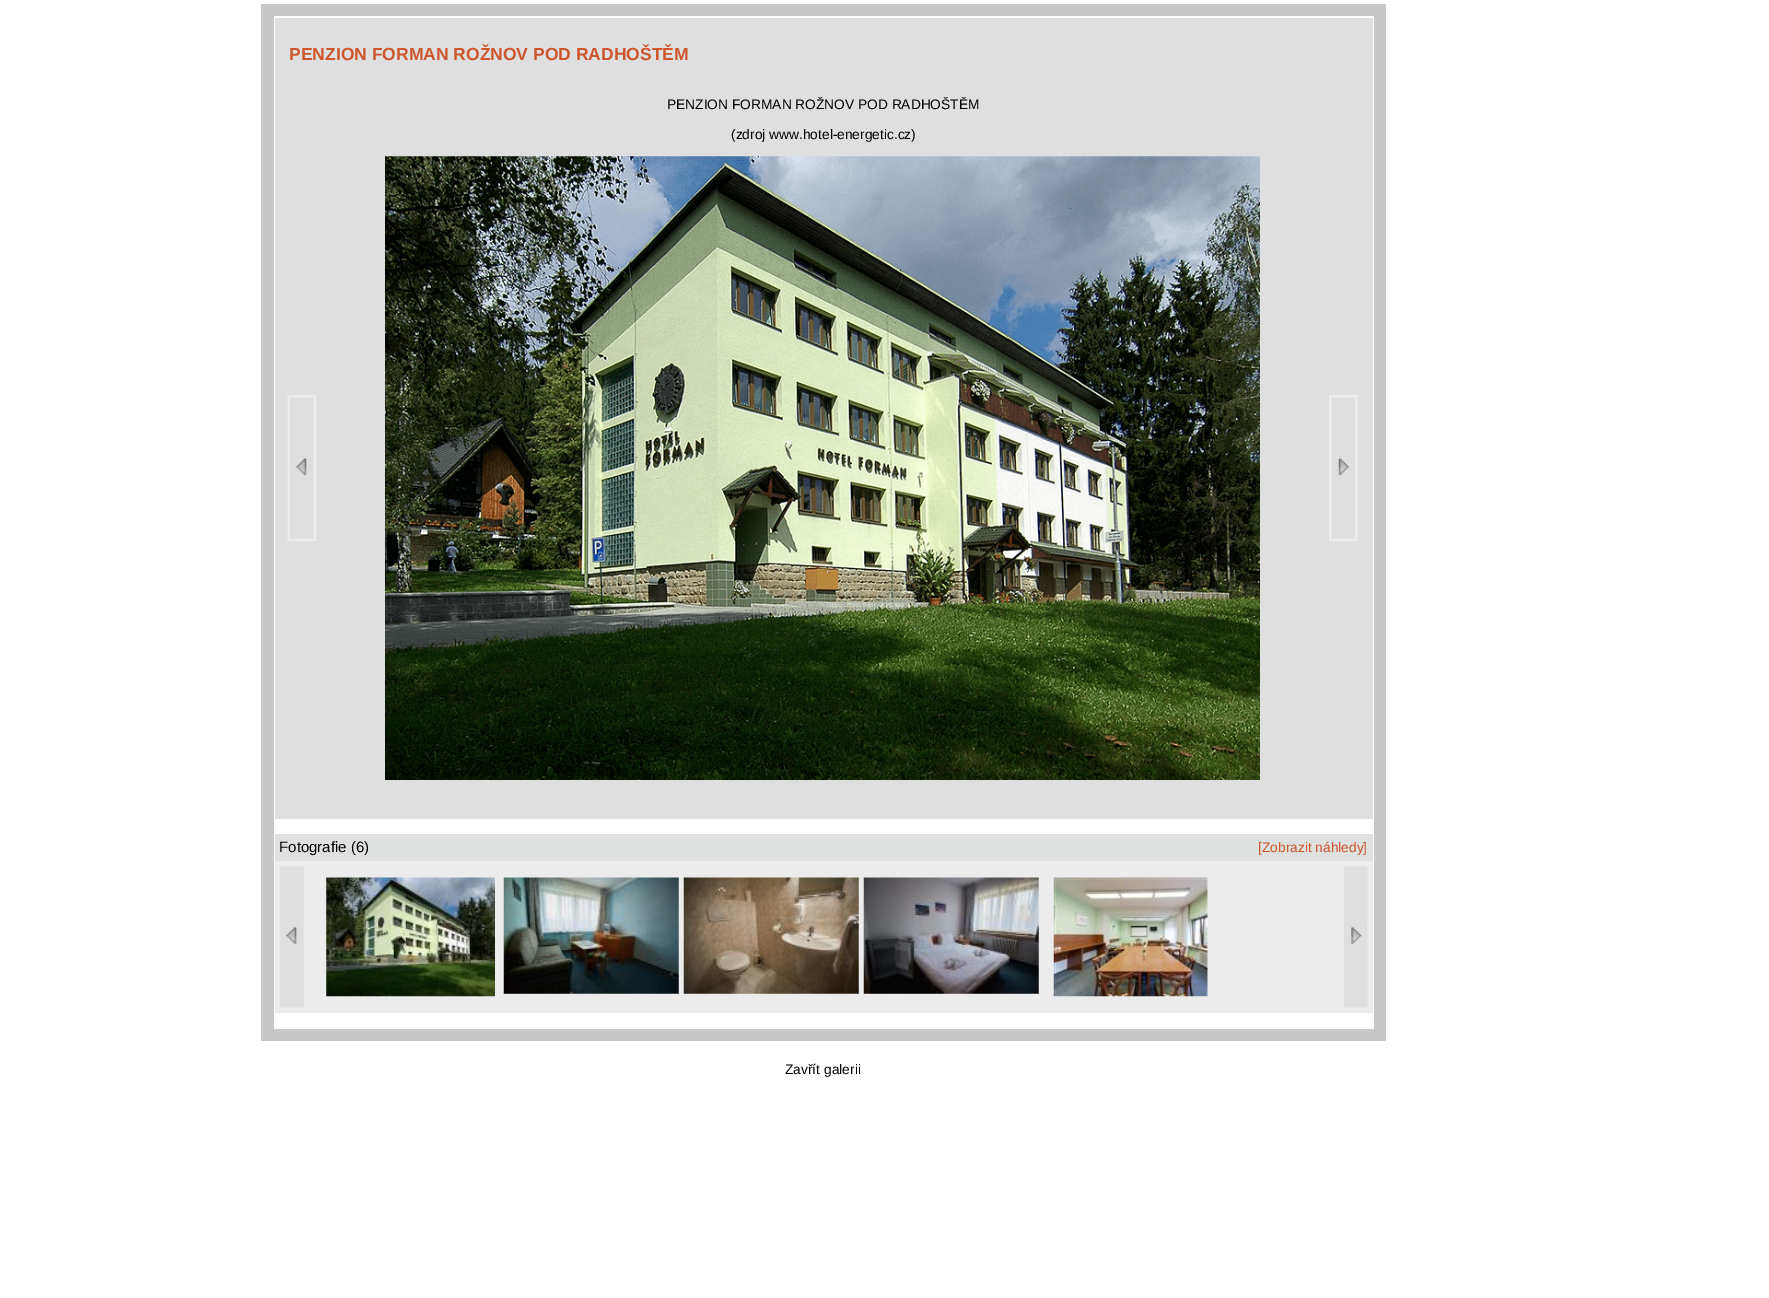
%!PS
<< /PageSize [1769 1298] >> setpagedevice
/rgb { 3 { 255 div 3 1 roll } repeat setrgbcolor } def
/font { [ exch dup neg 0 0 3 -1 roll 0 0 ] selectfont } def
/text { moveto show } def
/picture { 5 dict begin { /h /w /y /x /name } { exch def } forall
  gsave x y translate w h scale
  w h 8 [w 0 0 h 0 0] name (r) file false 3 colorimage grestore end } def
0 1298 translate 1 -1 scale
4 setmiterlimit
255 255 255 rgb
0 0 1769 1298 rectfill
200 200 200 rgb
274 4 1100 12 rectfill
1374 4 12 1025 rectfill
274 1029 1112 12 rectfill
261 4 13 1037 rectfill
223 223 223 rgb
275 18 1098 801 rectfill
(img_01.rgb) 287 395 29 146 picture
(img_02.rgb) 385 156 875 624 picture
(img_03.rgb) 1329 395 29 146 picture
223 224 224 rgb
275 834 1098 27 rectfill
236 236 236 rgb
275 861 1098 152 rectfill
(img_04.rgb) 280 866 24 142 picture
(img_05.rgb) 326 877 169 120 picture
(img_06.rgb) 503 877 176 117 picture
(img_07.rgb) 683 877 176 117 picture
(img_08.rgb) 863 877 176 117 picture
(img_09.rgb) 1053 877 155 120 picture
(img_10.rgb) 1344 866 24 142 picture
/LiberationSans-Bold 17.5 font
206 85 45 rgb
(PENZION FORMAN ROŽNOV POD RADHOŠTĚM) 289 60 text
/LiberationSans-Regular 13.75 font
0 0 0 rgb
(PENZION FORMAN ROŽNOV POD RADHOŠTĚM) 667 109 text
(\(zdroj www.hotel-energetic.cz\)) 731 139 text
/LiberationSans-Regular 15 font
(Fotografie \(6\)) 279 852 text
/LiberationSans-Regular 13.75 font
206 85 45 rgb
([Zobrazit náhledy]) 1258 852 text
0 0 0 rgb
(Zavřít galerii) 785 1074 text
showpage
